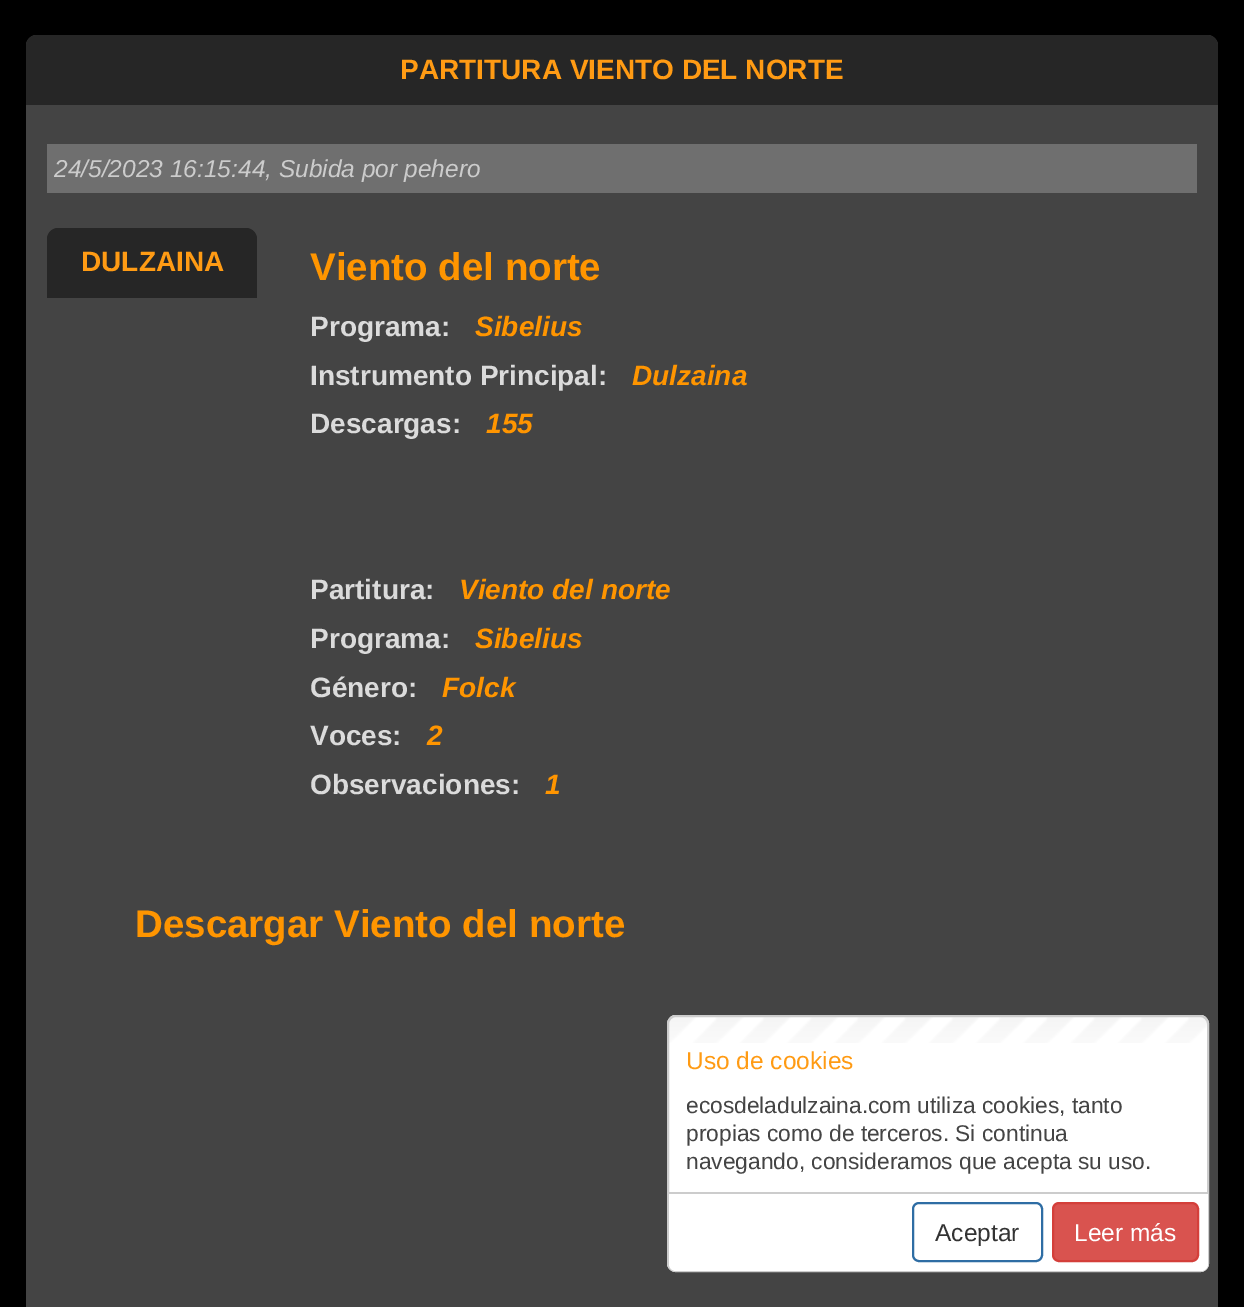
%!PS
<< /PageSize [1244 1307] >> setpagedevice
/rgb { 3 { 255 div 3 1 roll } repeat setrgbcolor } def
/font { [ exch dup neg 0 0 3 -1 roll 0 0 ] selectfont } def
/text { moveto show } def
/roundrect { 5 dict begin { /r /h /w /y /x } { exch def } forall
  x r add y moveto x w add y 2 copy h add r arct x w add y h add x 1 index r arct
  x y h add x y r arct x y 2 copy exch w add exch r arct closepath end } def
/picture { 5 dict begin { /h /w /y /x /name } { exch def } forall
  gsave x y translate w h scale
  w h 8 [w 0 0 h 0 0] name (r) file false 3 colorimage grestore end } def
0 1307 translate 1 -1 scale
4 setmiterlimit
0 0 0 rgb
0 0 1244 1307 rectfill
68 68 68 rgb
26 35 1192 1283 11 roundrect fill
38 38 38 rgb
37 35 moveto 1170 0 rlineto 6 0 11 5 11 11 rcurveto 0 59 rlineto -1192 0 rlineto 0 -59 rlineto 0 -6 5 -11 11 -11 rcurveto closepath fill
111 111 111 rgb
47 144 1150 49 rectfill
38 38 38 rgb
58 228 moveto 188 0 rlineto 6 0 11 5 11 11 rcurveto 0 59 rlineto -210 0 rlineto 0 -59 rlineto 0 -6 5 -11 11 -11 rcurveto closepath fill
255 255 255 rgb
667 1015 542 257 9 roundrect fill
(img_01.rgb) 667 1017 542 26 picture
204 204 204 rgb
2 setlinewidth
668 1016 540 255 8 roundrect stroke
255 255 255 rgb
669 1192 moveto 539 0 rlineto 0 72 rlineto 0 4 -3 7 -7 7 rcurveto -525 0 rlineto -4 0 -7 -3 -7 -7 rcurveto closepath fill
204 204 204 rgb
669 1192 539 2 rectfill
46 109 164 rgb
913 1203 129 58 6 roundrect stroke
217 83 79 rgb
1053 1203 145 58 6 roundrect gsave fill grestore
212 63 58 rgb
stroke
/LiberationSans-Bold 28 font
255 155 20 rgb
(PARTITURA VIENTO DEL NORTE) 400 79 text
/LiberationSans-Italic 24.5 font
204 204 204 rgb
(24/5/2023 16:15:44, Subida por pehero) 54 177 text
/LiberationSans-Bold 28 font
255 155 20 rgb
(DULZAINA) 81 271 text
/LiberationSans-Bold 38.5 font
255 149 0 rgb
(Viento del norte) 310 280 text
/LiberationSans-Bold 28 font
219 219 219 rgb
(Programa:) 310 336 text
/LiberationSans-BoldItalic 28 font
255 149 0 rgb
(Sibelius) 475 336 text
/LiberationSans-Bold 28 font
219 219 219 rgb
(Instrumento Principal:) 310 385 text
/LiberationSans-BoldItalic 28 font
255 149 0 rgb
(Dulzaina) 632 385 text
/LiberationSans-Bold 28 font
219 219 219 rgb
(Descargas:) 310 433 text
/LiberationSans-BoldItalic 28 font
255 149 0 rgb
(155) 486 433 text
/LiberationSans-Bold 28 font
219 219 219 rgb
(Partitura:) 310 599 text
/LiberationSans-BoldItalic 28 font
255 149 0 rgb
(Viento del norte) 459 599 text
/LiberationSans-Bold 28 font
219 219 219 rgb
(Programa:) 310 648 text
/LiberationSans-BoldItalic 28 font
255 149 0 rgb
(Sibelius) 475 648 text
/LiberationSans-Bold 28 font
219 219 219 rgb
(Género:) 310 697 text
/LiberationSans-BoldItalic 28 font
255 149 0 rgb
(Folck) 442 697 text
/LiberationSans-Bold 28 font
219 219 219 rgb
(Voces:) 310 745 text
/LiberationSans-BoldItalic 28 font
255 149 0 rgb
(2) 427 745 text
/LiberationSans-Bold 28 font
219 219 219 rgb
(Observaciones:) 310 794 text
/LiberationSans-BoldItalic 28 font
255 149 0 rgb
(1) 545 794 text
/LiberationSans-Bold 38.5 font
(Descargar Viento del norte) 135 937 text
/LiberationSans-Regular 24.5 font
255 155 20 rgb
(Uso de cookies) 686 1069 text
/LiberationSans-Regular 22.75 font
68 68 68 rgb
(ecosdeladulzaina.com utiliza cookies, tanto) 686 1113 text
(propias como de terceros. Si continua) 686 1141 text
(navegando, consideramos que acepta su uso.) 686 1169 text
/LiberationSans-Regular 24.5 font
51 51 51 rgb
(Aceptar) 935 1241 text
255 255 255 rgb
(Leer más) 1074 1241 text
showpage
